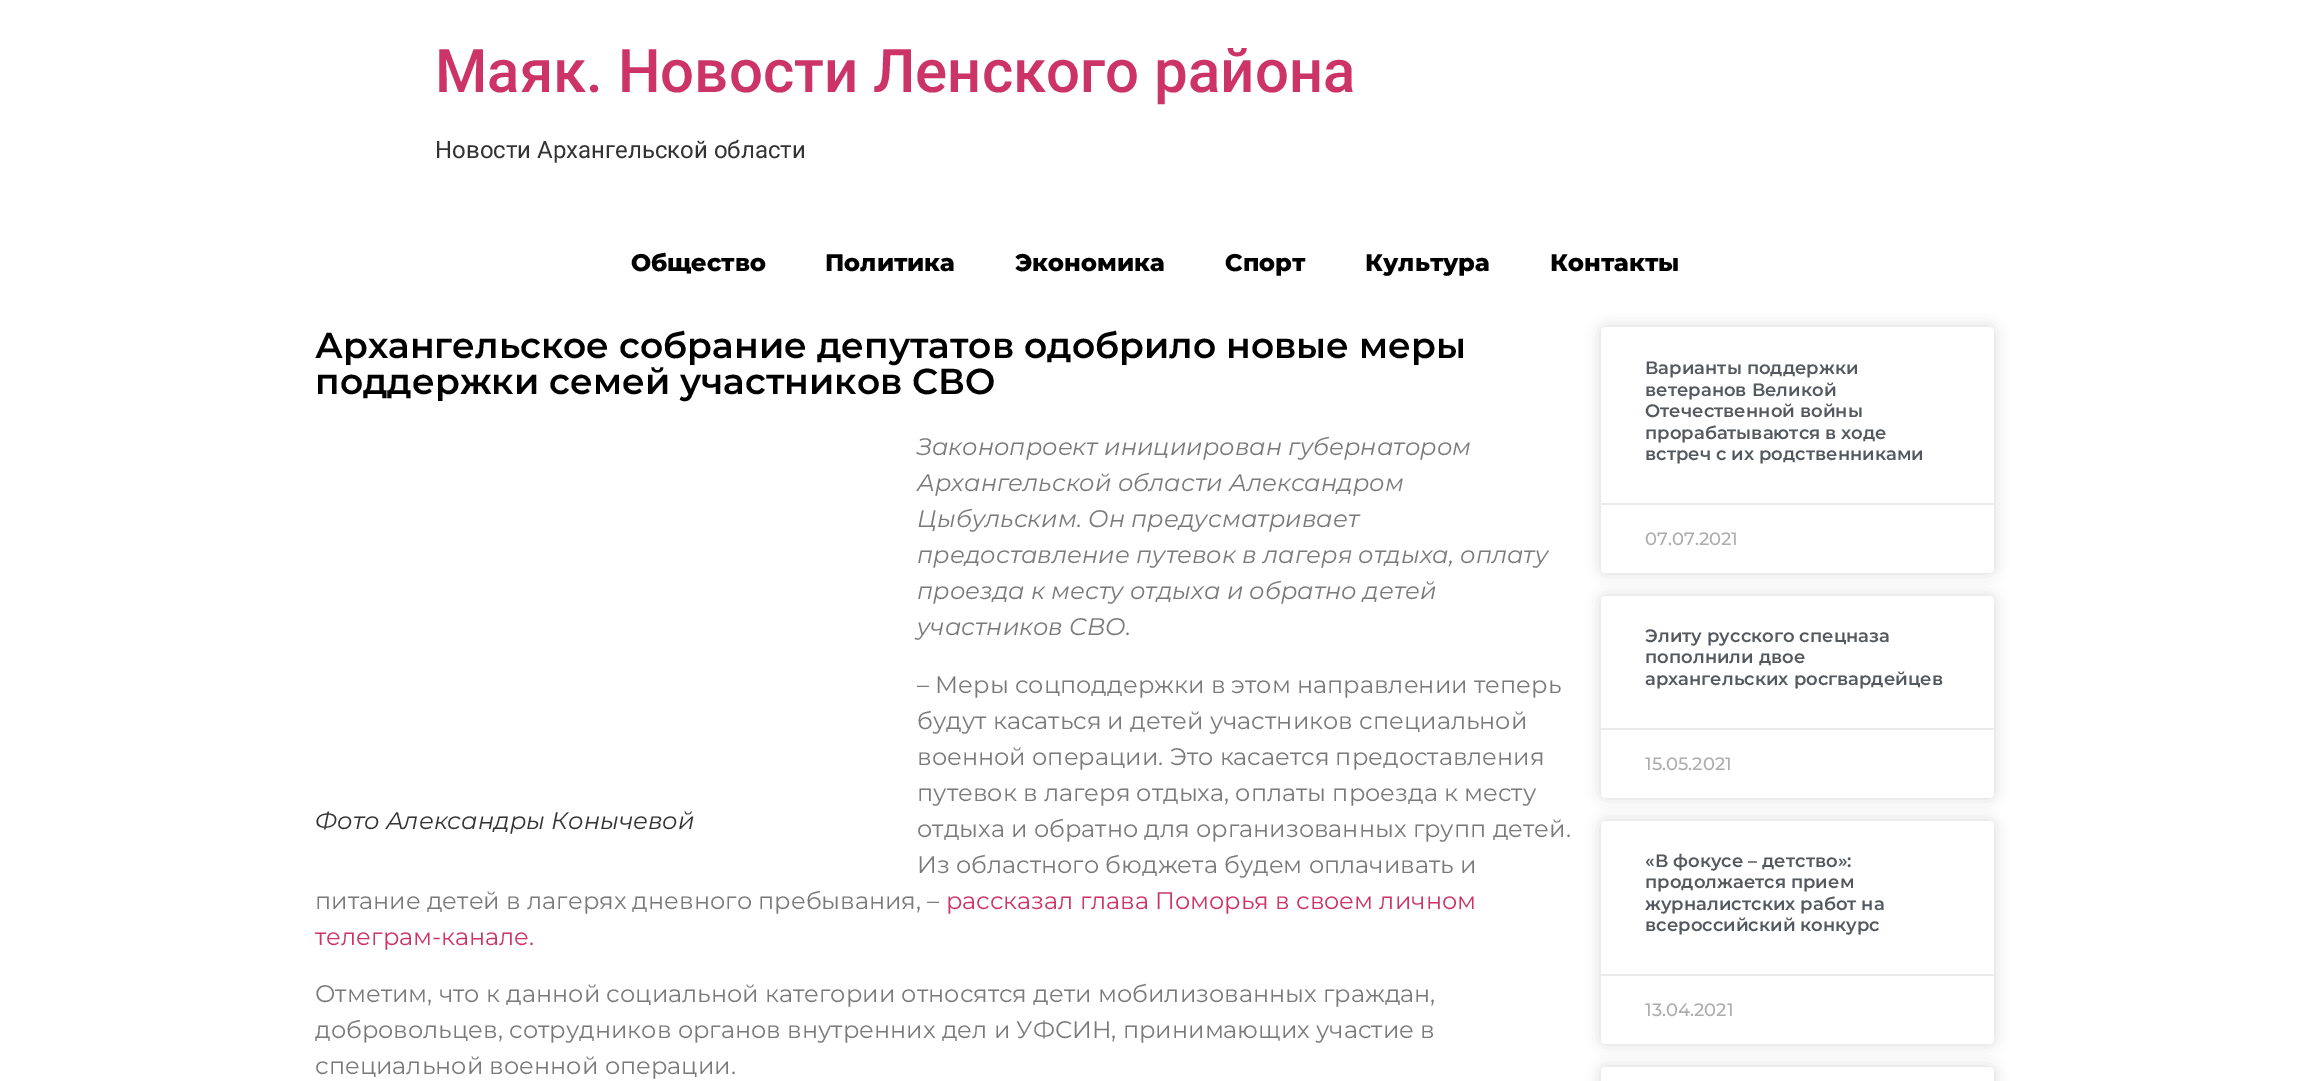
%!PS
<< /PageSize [2310 1081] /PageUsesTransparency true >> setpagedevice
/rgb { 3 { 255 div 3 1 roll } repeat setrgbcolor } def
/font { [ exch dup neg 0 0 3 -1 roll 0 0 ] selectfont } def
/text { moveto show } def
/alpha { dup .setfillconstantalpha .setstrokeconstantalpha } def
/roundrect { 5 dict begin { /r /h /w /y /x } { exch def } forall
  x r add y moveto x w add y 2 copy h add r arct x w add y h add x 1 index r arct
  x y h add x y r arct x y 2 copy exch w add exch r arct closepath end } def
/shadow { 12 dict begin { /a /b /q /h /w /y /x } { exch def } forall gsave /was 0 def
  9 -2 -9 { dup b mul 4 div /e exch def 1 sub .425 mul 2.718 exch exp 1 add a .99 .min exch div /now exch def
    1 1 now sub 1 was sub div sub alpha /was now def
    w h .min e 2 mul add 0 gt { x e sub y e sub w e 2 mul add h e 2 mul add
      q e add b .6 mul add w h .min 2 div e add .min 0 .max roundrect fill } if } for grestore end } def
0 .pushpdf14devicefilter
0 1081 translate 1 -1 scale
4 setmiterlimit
255 255 255 rgb
0 0 2310 1081 rectfill
0 0 0 rgb
1601 327 393 246 5 7.5 0.15 shadow
255 255 255 rgb
1601 327 393 246 5 roundrect fill
234 234 234 rgb
1601 503 393 2 rectfill
0 0 0 rgb
1601 596 393 202 5 7.5 0.15 shadow
255 255 255 rgb
1601 596 393 202 5 roundrect fill
234 234 234 rgb
1601 728 393 2 rectfill
0 0 0 rgb
1601 821 393 223 5 7.5 0.15 shadow
255 255 255 rgb
1601 821 393 223 5 roundrect fill
234 234 234 rgb
1601 974 393 2 rectfill
0 0 0 rgb
1601 1067 393 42 5 7.5 0.15 shadow
255 255 255 rgb
1601 1067 393 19 5 roundrect fill
/Roboto-Medium 60 font
204 51 102 rgb
(Маяк. Новости Ленского района) 435 92 text
/Roboto-Regular 24 font
51 51 51 rgb
(Новости Архангельской области) 435 158 text
/Montserrat-ExtraBold 24 font
0 0 0 rgb
(Общество) 631 271 text
(Политика) 825 271 text
(Экономика) 1015 271 text
(Спорт) 1225 271 text
(Культура) 1365 271 text
(Контакты) 1550 271 text
/Montserrat-SemiBold 36 font
(Архангельское собрание депутатов одобрило новые меры) 315 358 text
(поддержки семей участников СВО) 315 394 text
/Montserrat-Italic 24 font
122 122 122 rgb
(Законопроект инициирован губернатором) 917 455 text
(Архангельской области Александром) 917 491 text
(Цыбульским. Он предусматривает) 917 527 text
(предоставление путевок в лагеря отдыха, оплату) 917 563 text
(проезда к месту отдыха и обратно детей) 917 599 text
(участников СВО.) 917 635 text
/Montserrat-Regular 24 font
(– Меры соцподдержки в этом направлении теперь) 917 693 text
(будут касаться и детей участников специальной) 917 729 text
(военной операции. Это касается предоставления) 917 765 text
(путевок в лагеря отдыха, оплаты проезда к месту) 917 801 text
(отдыха и обратно для организованных групп детей.) 917 837 text
(Из областного бюджета будем оплачивать и) 917 873 text
(питание детей в лагерях дневного пребывания, –) 315 909 text
204 51 102 rgb
(рассказал глава Поморья в своем личном) 946 909 text
(телеграм-канале.) 315 945 text
/Montserrat-Italic 24 font
51 51 51 rgb
(Фото Александры Конычевой) 315 829 text
/Montserrat-Regular 24 font
122 122 122 rgb
(Отметим, что к данной социальной категории относятся дети мобилизованных граждан,) 315 1002 text
(добровольцев, сотрудников органов внутренних дел и УФСИН, принимающих участие в) 315 1038 text
(специальной военной операции.) 315 1074 text
/Montserrat-SemiBold 18 font
84 89 95 rgb
(Варианты поддержки) 1645 374 text
(ветеранов Великой) 1645 396 text
(Отечественной войны) 1645 417 text
(прорабатываются в ходе) 1645 439 text
(встреч с их родственниками) 1645 460 text
/Montserrat-Medium 18 font
173 173 173 rgb
(07.07.2021) 1645 545 text
/Montserrat-SemiBold 18 font
84 89 95 rgb
(Элиту русского спецназа) 1645 642 text
(пополнили двое) 1645 663 text
(архангельских росгвардейцев) 1645 685 text
/Montserrat-Medium 18 font
173 173 173 rgb
(15.05.2021) 1645 770 text
/Montserrat-SemiBold 18 font
84 89 95 rgb
(«В фокусе – детство»:) 1645 867 text
(продолжается прием) 1645 888 text
(журналистских работ на) 1645 910 text
(всероссийский конкурс) 1645 931 text
/Montserrat-Medium 18 font
173 173 173 rgb
(13.04.2021) 1645 1016 text
.poppdf14devicefilter showpage
